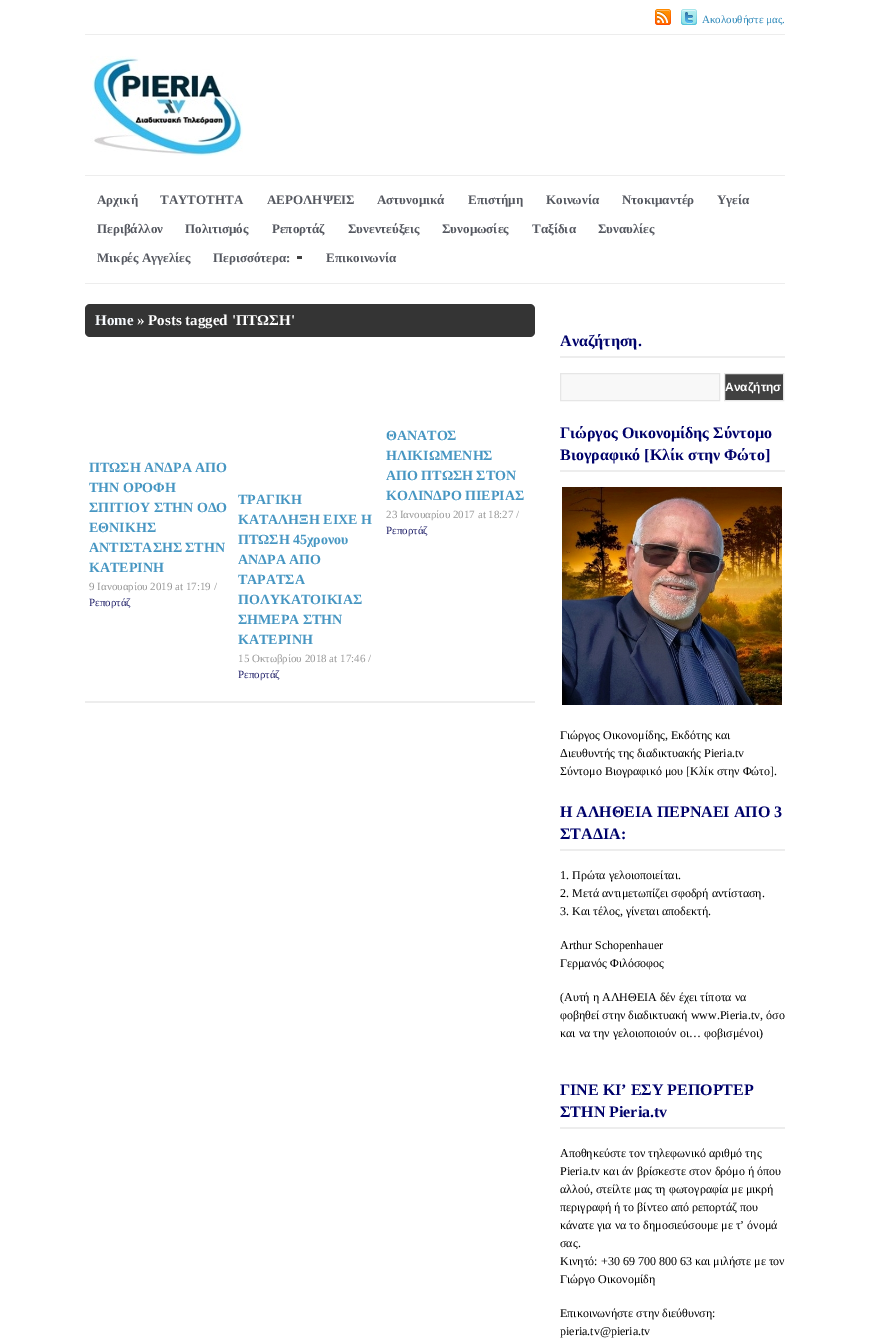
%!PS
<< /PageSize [869 1339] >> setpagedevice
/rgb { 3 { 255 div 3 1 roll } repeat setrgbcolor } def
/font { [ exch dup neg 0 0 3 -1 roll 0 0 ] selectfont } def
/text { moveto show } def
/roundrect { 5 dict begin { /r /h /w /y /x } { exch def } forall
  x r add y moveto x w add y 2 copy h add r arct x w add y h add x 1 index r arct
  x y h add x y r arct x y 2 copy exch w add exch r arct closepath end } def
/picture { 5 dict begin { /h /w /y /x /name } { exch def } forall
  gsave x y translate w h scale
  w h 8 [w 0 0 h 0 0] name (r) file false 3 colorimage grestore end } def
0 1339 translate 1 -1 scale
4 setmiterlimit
255 255 255 rgb
0 0 869 1339 rectfill
237 237 237 rgb
85 34 700 1 rectfill
(img_01.rgb) 655 9 16 16 picture
(img_02.rgb) 681 9 16 16 picture
85 175 700 1 rectfill
(img_03.rgb) 90 56 153 100 picture
66 66 66 rgb
297 256 5 3 rectfill
237 237 237 rgb
85 283 700 1 rectfill
52 52 52 rgb
85 304 450 33 5 roundrect fill
237 237 237 rgb
85 701 450 2 rectfill
560 356 225 2 rectfill
248 248 248 rgb
560.5 373.5 moveto 159 0 rlineto 0 27 rlineto -159 0 rlineto closepath gsave fill grestore
230 230 230 rgb
stroke
65 65 65 rgb
724.5 373.5 moveto 59 0 rlineto 0 27 rlineto -59 0 rlineto closepath gsave fill grestore
230 230 230 rgb
stroke
237 237 237 rgb
560 470 225 2 rectfill
(img_04.rgb) 562 487 220 218 picture
560 849 225 2 rectfill
560 1127 225 2 rectfill
/LiberationSerif-Regular 11 font
41 134 184 rgb
(Ακολουθήστε μας.) 702 23 text
/LiberationSerif-Bold 13 font
85 88 96 rgb
(Αρχική) 97 204 text
(ΤΑΥΤΟΤΗΤΑ) 160 204 text
(ΑΕΡΟΛΗΨΕΙΣ) 267 204 text
(Αστυνομικά) 377 204 text
(Επιστήμη) 468 204 text
(Κοινωνία) 546 204 text
(Ντοκιμαντέρ) 622 204 text
(Υγεία) 717 204 text
(Περιβάλλον) 97 233 text
(Πολιτισμός) 185 233 text
(Ρεπορτάζ) 272 233 text
(Συνεντεύξεις) 348 233 text
(Συνομωσίες) 442 233 text
(Ταξίδια) 532 233 text
(Συναυλίες) 598 233 text
(Μικρές Αγγελίες) 97 262 text
(Περισσότερα:) 213 262 text
(Επικοινωνία) 326 262 text
/LiberationSerif-Bold 15 font
248 251 255 rgb
(Home) 95 325 text
255 255 255 rgb
(» Posts tagged 'ΠΤΩΣΗ') 137 325 text
/LiberationSerif-Bold 14 font
70 150 194 rgb
(ΠΤΩΣΗ ΑΝΔΡΑ ΑΠΟ) 89 472 text
(ΤΗΝ ΟΡΟΦΗ) 89 492 text
(ΣΠΙΤΙΟΥ ΣΤΗΝ ΟΔΟ) 89 512 text
(ΕΘΝΙΚΗΣ) 89 532 text
(ΑΝΤΙΣΤΑΣΗΣ ΣΤΗΝ) 89 552 text
(ΚΑΤΕΡΙΝΗ) 89 572 text
/LiberationSerif-Regular 11 font
152 152 152 rgb
(9 Ιανουαρίου 2019 at 17:19 /) 89 590 text
35 35 107 rgb
(Ρεπορτάζ) 89 606 text
/LiberationSerif-Bold 14 font
70 150 194 rgb
(ΤΡΑΓΙΚΗ) 238 504 text
(ΚΑΤΑΛΗΞΗ ΕΙΧΕ Η) 238 524 text
(ΠΤΩΣΗ 45χρονου) 238 544 text
(ΑΝΔΡΑ ΑΠΟ) 238 564 text
(ΤΑΡΑΤΣΑ) 238 584 text
(ΠΟΛΥΚΑΤΟΙΚΙΑΣ) 238 604 text
(ΣΗΜΕΡΑ ΣΤΗΝ) 238 624 text
(ΚΑΤΕΡΙΝΗ) 238 644 text
/LiberationSerif-Regular 11 font
152 152 152 rgb
(15 Οκτωβρίου 2018 at 17:46 /) 238 662 text
35 35 107 rgb
(Ρεπορτάζ) 238 678 text
/LiberationSerif-Bold 14 font
70 150 194 rgb
(ΘΑΝΑΤΟΣ) 386 440 text
(ΗΛΙΚΙΩΜΕΝΗΣ) 386 460 text
(ΑΠΟ ΠΤΩΣΗ ΣΤΟΝ) 386 480 text
(ΚΟΛΙΝΔΡΟ ΠΙΕΡΙΑΣ) 386 500 text
/LiberationSerif-Regular 11 font
152 152 152 rgb
(23 Ιανουαρίου 2017 at 18:27 /) 386 518 text
35 35 107 rgb
(Ρεπορτάζ) 386 534 text
/LiberationSerif-Bold 16 font
0 2 107 rgb
(Αναζήτηση.) 560 346 text
/LiberationSans-Bold 12 font
255 255 255 rgb
(Αναζήτησ) 725 391 text
/LiberationSerif-Bold 16 font
0 2 107 rgb
(Γιώργος Οικονομίδης Σύντομο) 560 438 text
(Βιογραφικό [Κλίκ στην Φώτο]) 560 460 text
/LiberationSerif-Regular 12 font
0 0 0 rgb
(Γιώργος Οικονομίδης, Εκδότης και) 560 739 text
(Διευθυντής της διαδικτυακής Pieria.tv) 560 757 text
(Σύντομο Βιογραφικό μου [Κλίκ στην Φώτο].) 560 775 text
/LiberationSerif-Bold 16 font
0 2 107 rgb
(Η ΑΛΗΘΕΙΑ ΠΕΡΝΑΕΙ ΑΠΟ 3) 560 817 text
(ΣΤΑΔΙΑ:) 560 839 text
/LiberationSerif-Regular 12 font
0 0 0 rgb
(1. Πρώτα γελοιοποιείται.) 560 879 text
(2. Μετά αντιμετωπίζει σφοδρή αντίσταση.) 560 897 text
(3. Και τέλος, γίνεται αποδεκτή.) 560 915 text
(Arthur Schopenhauer) 560 949 text
(Γερμανός Φιλόσοφος) 560 967 text
(\(Αυτή η ΑΛΗΘΕΙΑ δέν έχει τίποτα να) 560 1001 text
(φοβηθεί στην διαδικτυακή www.Pieria.tv, όσο) 560 1019 text
(και να την γελοιοποιούν οι… φοβισμένοι\)) 560 1037 text
/LiberationSerif-Bold 16 font
0 2 107 rgb
(ΓΙΝΕ ΚΙ’ ΕΣΥ ΡΕΠΟΡΤΕΡ) 560 1095 text
(ΣΤΗΝ Pieria.tv) 560 1117 text
/LiberationSerif-Regular 12 font
0 0 0 rgb
(Αποθηκεύστε τον τηλεφωνικό αριθμό της) 560 1157 text
(Pieria.tv και άν βρίσκεστε στον δρόμο ή όπου) 560 1175 text
(αλλού, στείλτε μας τη φωτογραφία με μικρή) 560 1193 text
(περιγραφή ή το βίντεο από ρεπορτάζ που) 560 1211 text
(κάνατε για να το δημοσιεύσουμε με τ’ όνομά) 560 1229 text
(σας.) 560 1247 text
(Κινητό: +30 69 700 800 63 και μιλήστε με τον) 560 1265 text
(Γιώργο Οικονομίδη) 560 1283 text
(Επικοινωνήστε στην διεύθυνση:) 560 1317 text
(pieria.tv@pieria.tv) 560 1335 text
showpage
